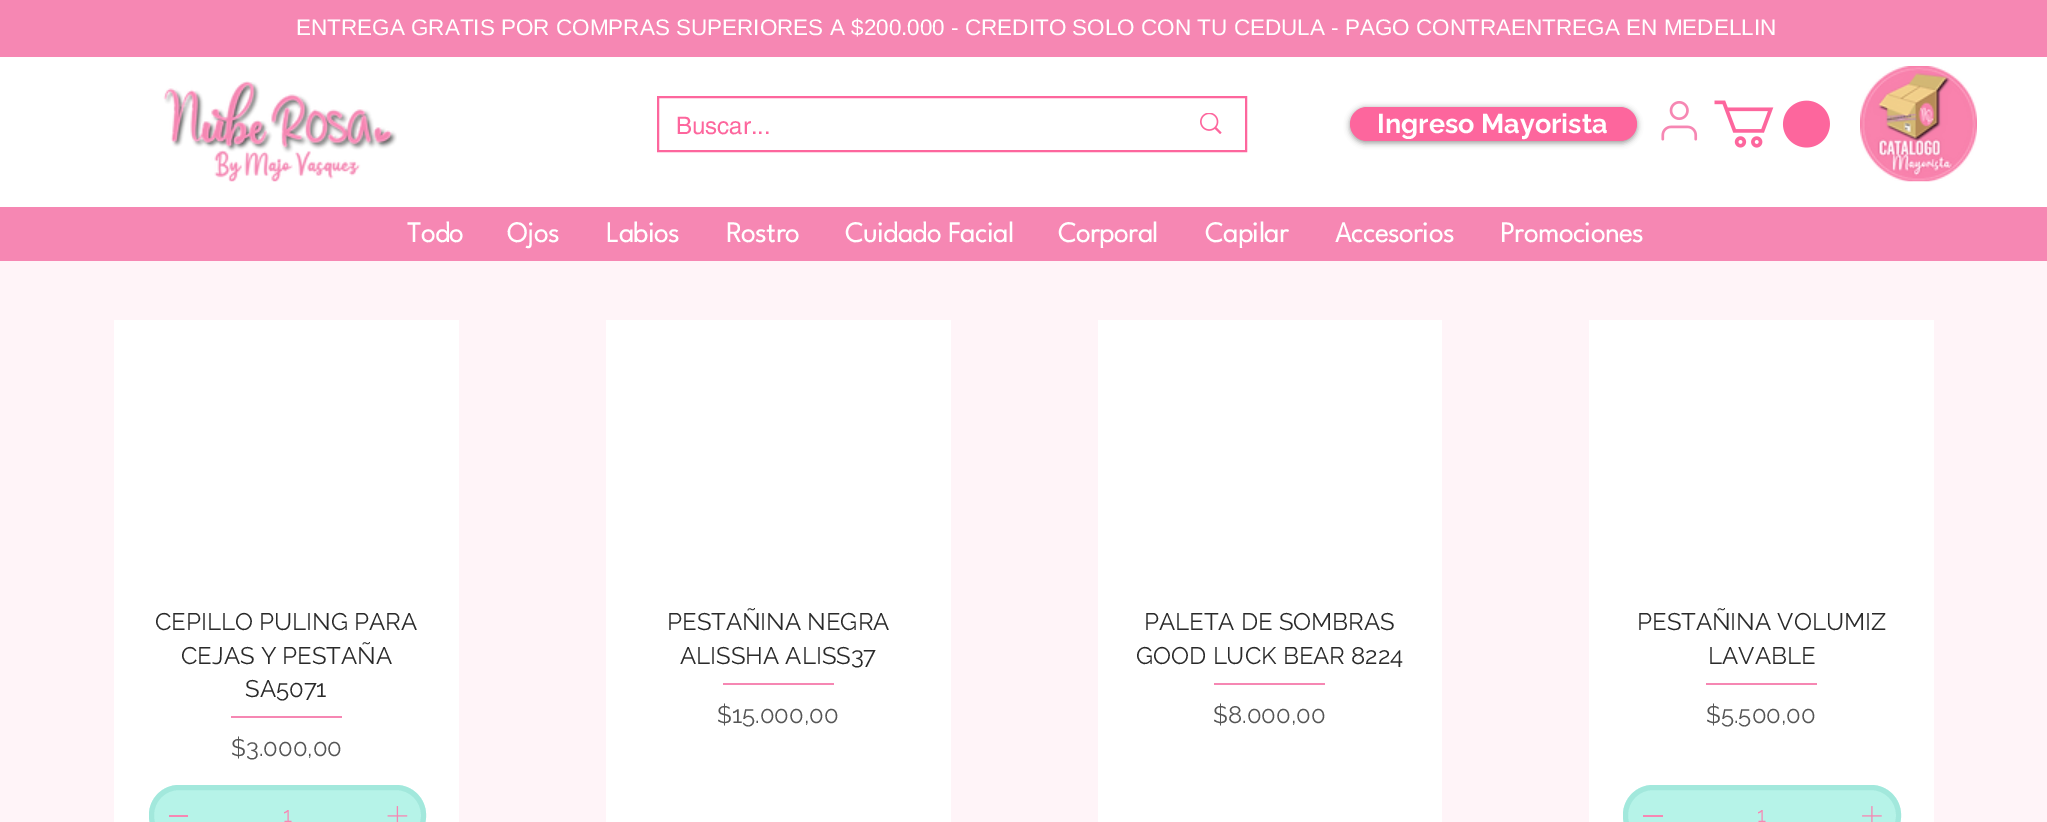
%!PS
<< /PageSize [2047 822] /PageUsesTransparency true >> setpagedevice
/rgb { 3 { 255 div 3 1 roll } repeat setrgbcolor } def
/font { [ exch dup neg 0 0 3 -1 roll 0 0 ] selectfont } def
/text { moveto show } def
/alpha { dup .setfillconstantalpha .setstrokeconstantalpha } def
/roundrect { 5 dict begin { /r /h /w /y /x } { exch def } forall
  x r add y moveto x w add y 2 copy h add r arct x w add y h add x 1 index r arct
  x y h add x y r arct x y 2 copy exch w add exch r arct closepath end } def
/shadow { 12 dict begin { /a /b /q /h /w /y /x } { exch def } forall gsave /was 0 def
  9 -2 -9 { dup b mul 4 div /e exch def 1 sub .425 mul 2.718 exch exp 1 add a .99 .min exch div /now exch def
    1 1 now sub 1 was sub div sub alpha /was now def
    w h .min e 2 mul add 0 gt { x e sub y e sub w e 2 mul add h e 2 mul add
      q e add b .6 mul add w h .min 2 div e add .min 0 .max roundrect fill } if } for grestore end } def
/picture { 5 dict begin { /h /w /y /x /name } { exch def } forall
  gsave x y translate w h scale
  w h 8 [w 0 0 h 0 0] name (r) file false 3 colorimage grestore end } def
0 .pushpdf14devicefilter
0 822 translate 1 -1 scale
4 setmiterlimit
255 255 255 rgb
0 0 2047 822 rectfill
246 135 179 rgb
0 0 2047 57 rectfill
(img_01.rgb) 163 81 234 101 picture
253 102 157 rgb
2 setlinewidth
658 97 588 54 rectstroke
(img_02.rgb) 1200 113 22 21 picture
0 0 0 rgb
1350 108 287 35 17.5 3 0.4 shadow
253 102 157 rgb
1350 107 287 34 17 roundrect fill
(img_03.rgb) 1661 101 37 40 picture
(img_04.rgb) 1714 100 116 48 picture
(img_05.rgb) 1860 66 117 116 picture
246 135 179 rgb
0 207 2047 54 rectfill
255 244 248 rgb
0 261 2047 561 rectfill
255 255 255 rgb
114 320 345 502 rectfill
246 135 179 rgb
231 716 111 2 rectfill
182 243 232 rgb
149 785 277 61 30 roundrect fill
0.6 alpha
148 224 212 rgb
5 setlinewidth
151.5 787.5 272 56 27.5 roundrect stroke
1 alpha
246 135 179 rgb
169 815 19 2 rectfill
(img_06.rgb) 387 806 21 16 picture
255 255 255 rgb
606 320 345 502 rectfill
246 135 179 rgb
723 683 111 2 rectfill
255 255 255 rgb
1098 320 344 502 rectfill
246 135 179 rgb
1214 683 111 2 rectfill
255 255 255 rgb
1589 320 345 502 rectfill
246 135 179 rgb
1706 683 111 2 rectfill
182 243 232 rgb
1623 785 278 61 30 roundrect fill
0.6 alpha
148 224 212 rgb
1625.5 787.5 273 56 27.5 roundrect stroke
1 alpha
246 135 179 rgb
1643 815 20 2 rectfill
(img_07.rgb) 1862 806 20 16 picture
/LiberationSans-Regular 22.5 font
255 255 255 rgb
(ENTREGA GRATIS POR COMPRAS SUPERIORES A $200.000 - CREDITO SOLO CON TU CEDULA - PAGO CONTRAENTREGA EN MEDELLIN) 296 35 text
/helvetica-Regular 24 font
253 102 157 rgb
(Buscar...) 676 134 text
/Raleway-Bold 27 font
255 255 255 rgb
(Ingreso Mayorista) 1377 133 text
/LeagueSpartan-Bold 28.5 font
(Todo) 407 242 text
(Ojos) 507 242 text
(Labios) 606 242 text
(Rostro) 726 242 text
(Cuidado Facial) 845 242 text
(Corporal) 1058 242 text
(Capilar) 1205 242 text
(Accesorios) 1335 242 text
(Promociones) 1500 242 text
/Raleway-Regular 24 font
42 42 42 rgb
(CEPILLO PULING PARA) 155 630 text
(CEJAS Y PESTAÑA) 181 664 text
(SA5071) 245 697 text
85 85 85 rgb
($3.000,00) 231 756 text
/Raleway-Regular 21 font
246 135 179 rgb
(1) 283 822 text
/Raleway-Regular 24 font
42 42 42 rgb
(PESTAÑINA NEGRA) 667 630 text
(ALISSHA ALISS37) 680 664 text
85 85 85 rgb
($15.000,00) 717 723 text
42 42 42 rgb
(PALETA DE SOMBRAS) 1144 630 text
(GOOD LUCK BEAR 8224) 1136 664 text
85 85 85 rgb
($8.000,00) 1213 723 text
42 42 42 rgb
(PESTAÑINA VOLUMIZ) 1637 630 text
(LAVABLE) 1708 664 text
85 85 85 rgb
($5.500,00) 1706 723 text
/Raleway-Regular 21 font
246 135 179 rgb
(1) 1757 822 text
.poppdf14devicefilter showpage
